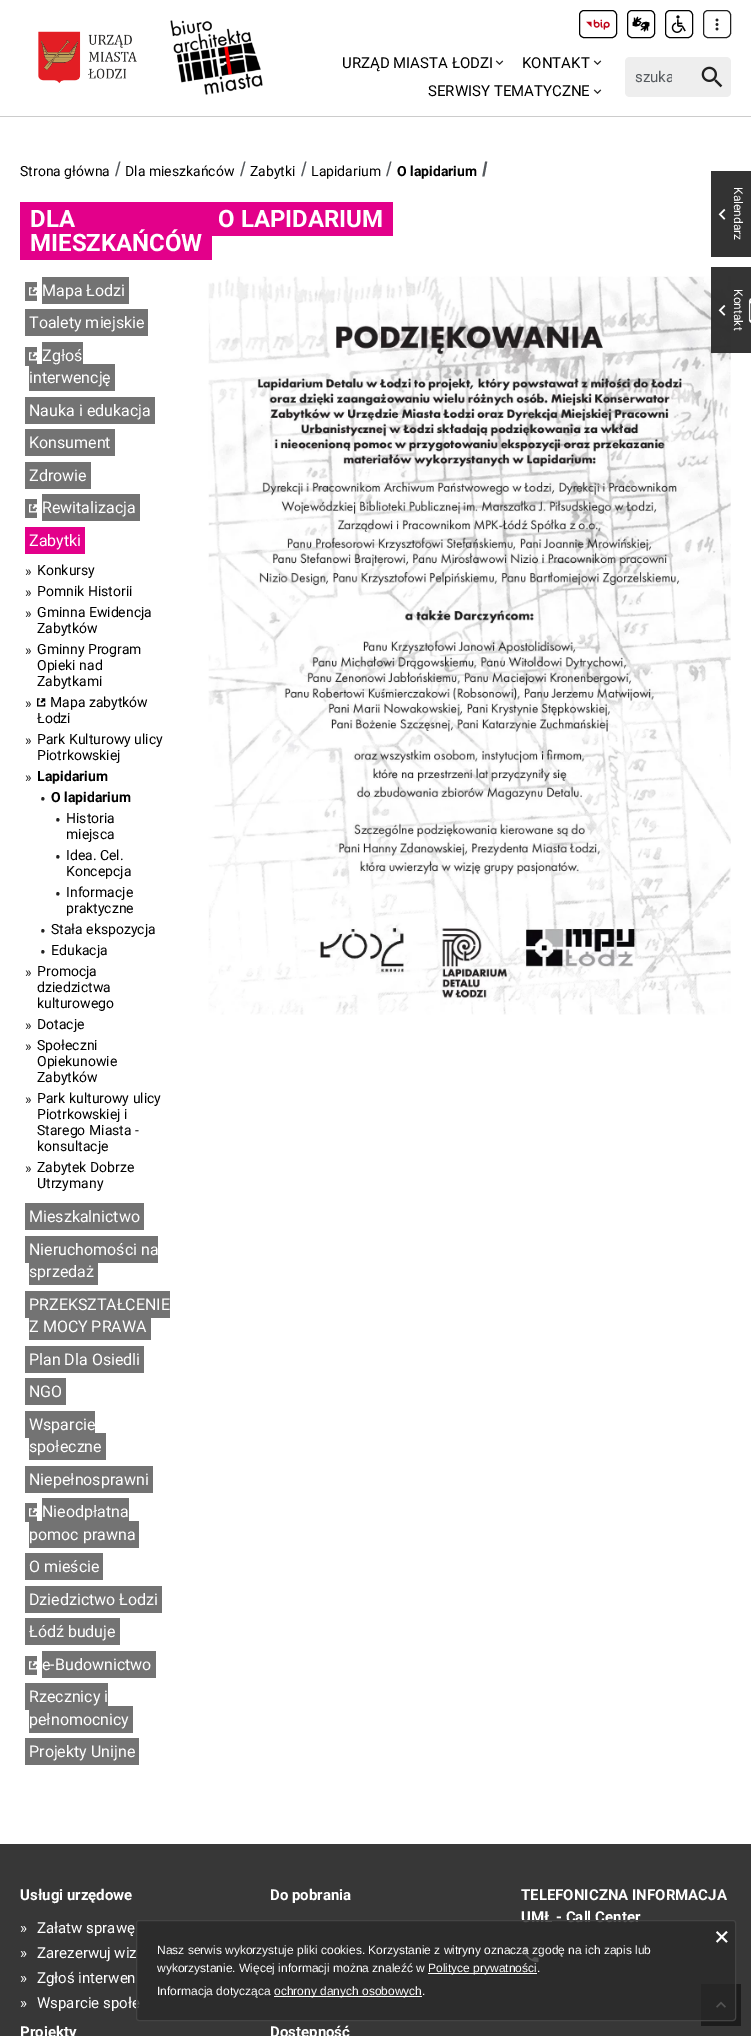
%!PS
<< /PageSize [751 2036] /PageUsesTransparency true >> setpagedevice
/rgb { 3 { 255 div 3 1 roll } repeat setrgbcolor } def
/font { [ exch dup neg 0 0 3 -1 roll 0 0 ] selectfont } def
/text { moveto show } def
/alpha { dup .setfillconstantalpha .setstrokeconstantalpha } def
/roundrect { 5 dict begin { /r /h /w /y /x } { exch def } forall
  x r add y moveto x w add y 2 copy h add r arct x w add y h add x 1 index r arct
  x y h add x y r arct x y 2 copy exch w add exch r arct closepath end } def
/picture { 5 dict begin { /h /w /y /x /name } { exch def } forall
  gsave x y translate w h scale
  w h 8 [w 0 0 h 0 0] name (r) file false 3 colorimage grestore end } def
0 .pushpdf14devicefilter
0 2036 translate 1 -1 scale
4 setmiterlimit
255 255 255 rgb
0 0 751 2036 rectfill
204 204 204 rgb
0 116 751 1 rectfill
(img_01.rgb) 38 31 99 53 picture
(img_02.rgb) 170 20 93 75 picture
0 0 0 rgb
579.5 10.5 37 27 4.5 roundrect stroke
(img_03.rgb) 586 19 24 11 picture
627.5 10.5 27 27 4.5 roundrect stroke
(img_04.rgb) 632 16 18 16 picture
665.5 10.5 27 27 4.5 roundrect stroke
(img_05.rgb) 671 15 15 18 picture
33 33 33 rgb
703.5 10.5 27 27 4.5 roundrect stroke
(img_06.rgb) 715 18 4 13 picture
(img_07.rgb) 495 60 9 5 picture
(img_07.rgb) 593 60 9 5 picture
(img_07.rgb) 593 89 9 5 picture
238 238 238 rgb
630 57 moveto 63 0 rlineto 0 40 rlineto -63 0 rlineto -3 0 -5 -2 -5 -5 rcurveto 0 -30 rlineto 0 -3 2 -5 5 -5 rcurveto closepath fill
693 57 moveto 33 0 rlineto 3 0 5 2 5 5 rcurveto 0 30 rlineto 0 3 -2 5 -5 5 rcurveto -33 0 rlineto closepath fill
(img_08.rgb) 701 66 22 22 picture
227 0 138 rgb
20 202 192 58 rectfill
115 115 115 rgb
25 282 12 19 rectfill
(img_09.rgb) 29 287 8 9 picture
42 277 87 27 rectfill
25 309 123 27 rectfill
25 347 12 19 rectfill
(img_09.rgb) 29 352 8 9 picture
42 342 41 22 rectfill
29 364 86 27 rectfill
25 397 130 27 rectfill
25 429 90 27 rectfill
25 462 66 27 rectfill
25 499 12 19 rectfill
(img_09.rgb) 29 504 8 9 picture
42 494 98 27 rectfill
227 0 138 rgb
25 527 60 27 rectfill
(img_10.rgb) 37 698 9 9 picture
115 115 115 rgb
25 1203 119 27 rectfill
25 1236 133 27 rectfill
29 1263 69 22 rectfill
25 1291 145 27 rectfill
29 1318 122 22 rectfill
25 1346 119 27 rectfill
25 1378 41 27 rectfill
25 1411 70 27 rectfill
29 1433 77 27 rectfill
25 1466 128 27 rectfill
25 1503 12 19 rectfill
(img_09.rgb) 29 1508 8 9 picture
42 1498 87 23 rectfill
29 1521 110 27 rectfill
25 1553 78 27 rectfill
25 1586 137 27 rectfill
25 1618 95 27 rectfill
25 1656 12 19 rectfill
(img_09.rgb) 29 1661 8 9 picture
42 1651 114 27 rectfill
25 1683 83 27 rectfill
29 1706 104 27 rectfill
25 1738 114 27 rectfill
227 0 138 rgb
212 202 181 34 rectfill
(img_11.rgb) 208 276 523 739 picture
51 51 51 rgb
711 171 40 86 rectfill
(img_12.rgb) 718 208 8 12 picture
0.97 alpha
45 45 45 rgb
711 267 40 86 rectfill
1 alpha
(img_13.rgb) 718 304 8 12 picture
(img_14.rgb) 748 298 3 25 picture
55 55 55 rgb
0 1844 751 192 rectfill
(img_15.rgb) 523 1947 16 16 picture
28 28 28 rgb
701 1984 40 42 rectfill
(img_16.rgb) 716 2001 10 7 picture
/Roboto-Regular 15 font
0 0 0 rgb
(URZĄD MIASTA ŁODZI) 342 68 text
(KONTAKT) 522 68 text
(SERWISY TEMATYCZNE) 428 96 text
gsave
635 68 37 18 rectclip
86 90 94 rgb
(szuka) 635 82 text
grestore
/Roboto-Regular 14 font
(Strona główna) 20 176 text
/LiberationSans-Regular 20 font
86 90 94 rgb
(/) 115 176 text
/Roboto-Regular 14 font
0 0 0 rgb
(Dla mieszkańców) 125 176 text
/LiberationSans-Regular 20 font
86 90 94 rgb
(/) 240 176 text
/Roboto-Regular 14 font
0 0 0 rgb
(Zabytki) 250 176 text
/LiberationSans-Regular 20 font
86 90 94 rgb
(/) 301 176 text
/Roboto-Regular 14 font
0 0 0 rgb
(Lapidarium) 311 176 text
/LiberationSans-Regular 20 font
86 90 94 rgb
(/) 386 176 text
/Roboto-Bold 14 font
0 0 0 rgb
(O lapidarium) 397 176 text
/LiberationSans-Bold 20 font
86 90 94 rgb
(/) 482 176 text
/Roboto-Bold 24 font
255 255 255 rgb
(DLA) 30 227 text
(MIESZKAŃCÓW) 30 251 text
/Roboto-Regular 16 font
(Mapa Łodzi) 42 296 text
(Toalety miejskie) 29 328 text
(Zgłoś) 42 361 text
(interwencję) 29 383 text
(Nauka i edukacja) 29 416 text
(Konsument) 29 448 text
(Zdrowie) 29 481 text
(Rewitalizacja) 42 513 text
(Zabytki) 29 546 text
/Roboto-Regular 14 font
33 33 33 rgb
(») 25 576 text
0 0 0 rgb
(Konkursy) 37 575 text
33 33 33 rgb
(») 25 597 text
0 0 0 rgb
(Pomnik Historii) 37 596 text
33 33 33 rgb
(») 25 618 text
0 0 0 rgb
(Gminna Ewidencja) 37 617 text
(Zabytków) 37 633 text
33 33 33 rgb
(») 25 655 text
0 0 0 rgb
(Gminny Program) 37 654 text
(Opieki nad) 37 670 text
(Zabytkami) 37 686 text
33 33 33 rgb
(») 25 708 text
0 0 0 rgb
(Mapa zabytków) 50 707 text
(Łodzi) 37 723 text
33 33 33 rgb
(») 25 745 text
0 0 0 rgb
(Park Kulturowy ulicy) 37 744 text
(Piotrkowskiej) 37 760 text
33 33 33 rgb
(») 25 782 text
/Roboto-Bold 14 font
0 0 0 rgb
(Lapidarium) 37 781 text
/Roboto-Regular 17 font
33 33 33 rgb
(•) 40 805 text
/Roboto-Bold 14 font
0 0 0 rgb
(O lapidarium) 51 802 text
/Roboto-Regular 17 font
33 33 33 rgb
(•) 55 826 text
/Roboto-Regular 14 font
0 0 0 rgb
(Historia) 66 823 text
(miejsca) 66 839 text
/Roboto-Regular 17 font
33 33 33 rgb
(•) 55 863 text
/Roboto-Regular 14 font
0 0 0 rgb
(Idea. Cel.) 66 860 text
(Koncepcja) 66 876 text
/Roboto-Regular 17 font
33 33 33 rgb
(•) 55 900 text
/Roboto-Regular 14 font
0 0 0 rgb
(Informacje) 66 897 text
(praktyczne) 66 913 text
/Roboto-Regular 17 font
33 33 33 rgb
(•) 40 937 text
/Roboto-Regular 14 font
0 0 0 rgb
(Stała ekspozycja) 51 934 text
/Roboto-Regular 17 font
33 33 33 rgb
(•) 40 958 text
/Roboto-Regular 14 font
0 0 0 rgb
(Edukacja) 51 955 text
33 33 33 rgb
(») 25 977 text
0 0 0 rgb
(Promocja) 37 976 text
(dziedzictwa) 37 992 text
(kulturowego) 37 1008 text
33 33 33 rgb
(») 25 1030 text
0 0 0 rgb
(Dotacje) 37 1029 text
33 33 33 rgb
(») 25 1051 text
0 0 0 rgb
(Społeczni) 37 1050 text
(Opiekunowie) 37 1066 text
(Zabytków) 37 1082 text
33 33 33 rgb
(») 25 1104 text
0 0 0 rgb
(Park kulturowy ulicy) 37 1103 text
(Piotrkowskiej i) 37 1119 text
(Starego Miasta -) 37 1135 text
(konsultacje) 37 1151 text
33 33 33 rgb
(») 25 1173 text
0 0 0 rgb
(Zabytek Dobrze) 37 1172 text
(Utrzymany) 37 1188 text
/Roboto-Regular 16 font
255 255 255 rgb
(Mieszkalnictwo) 29 1222 text
(Nieruchomości na) 29 1255 text
(sprzedaż) 29 1277 text
(PRZEKSZTAŁCENIE) 29 1310 text
(Z MOCY PRAWA) 29 1332 text
(Plan Dla Osiedli) 29 1365 text
(NGO) 29 1397 text
(Wsparcie) 29 1430 text
(społeczne) 29 1452 text
(Niepełnosprawni) 29 1485 text
(Nieodpłatna) 42 1517 text
(pomoc prawna) 29 1540 text
(O mieście) 29 1572 text
(Dziedzictwo Łodzi) 29 1605 text
(Łódź buduje) 29 1637 text
(e-Budownictwo) 42 1670 text
(Rzecznicy i) 29 1702 text
(pełnomocnicy) 29 1725 text
(Projekty Unijne) 29 1757 text
/Roboto-Bold 24 font
(O LAPIDARIUM) 218 227 text
/Roboto-Regular 12 font
gsave 734 187 translate 90 rotate 0 0 moveto (Kalendarz) show grestore
gsave 734 289 translate 90 rotate 0 0 moveto (Kontakt) show grestore
/Roboto-Bold 15 font
(Usługi urzędowe) 20 1900 text
/Roboto-Regular 15 font
(») 20 1933 text
(Załatw sprawę) 37 1933 text
(») 20 1958 text
(Zarezerwuj wiz) 37 1958 text
(») 20 1983 text
(Zgłoś interwen) 37 1983 text
(») 20 2008 text
(Wsparcie społe) 37 2008 text
/Roboto-Bold 15 font
(Do pobrania) 270 1900 text
(Projekty) 20 2037 text
(Dostępność) 270 2037 text
(TELEFONICZNA INFORMACJA) 521 1900 text
(UMŁ - Call Center) 521 1922 text
0.8 alpha
41 41 41 rgb
136.5 1920.5 599 100 2.5 roundrect fill
1 alpha
68 68 68 rgb
136.5 1920.5 599 100 2.5 roundrect stroke
/DejaVuSansMono-Regular 26 font
255 255 255 rgb
(×) 714 1945 text
/LiberationSans-Regular 12 font
(Nasz serwis wykorzystuje pliki cookies. Korzystanie z witryny oznacza zgodę na ich zapis lub) 157 1954 text
(wykorzystanie. Więcej informacji można znaleźć w) 157 1972 text
428 1973 109 1 rectfill
(Polityce prywatności.) 428 1972 text
(Informacja dotycząca) 157 1995 text
274 1996 148 1 rectfill
(ochrony danych osobowych.) 274 1995 text
.poppdf14devicefilter showpage
